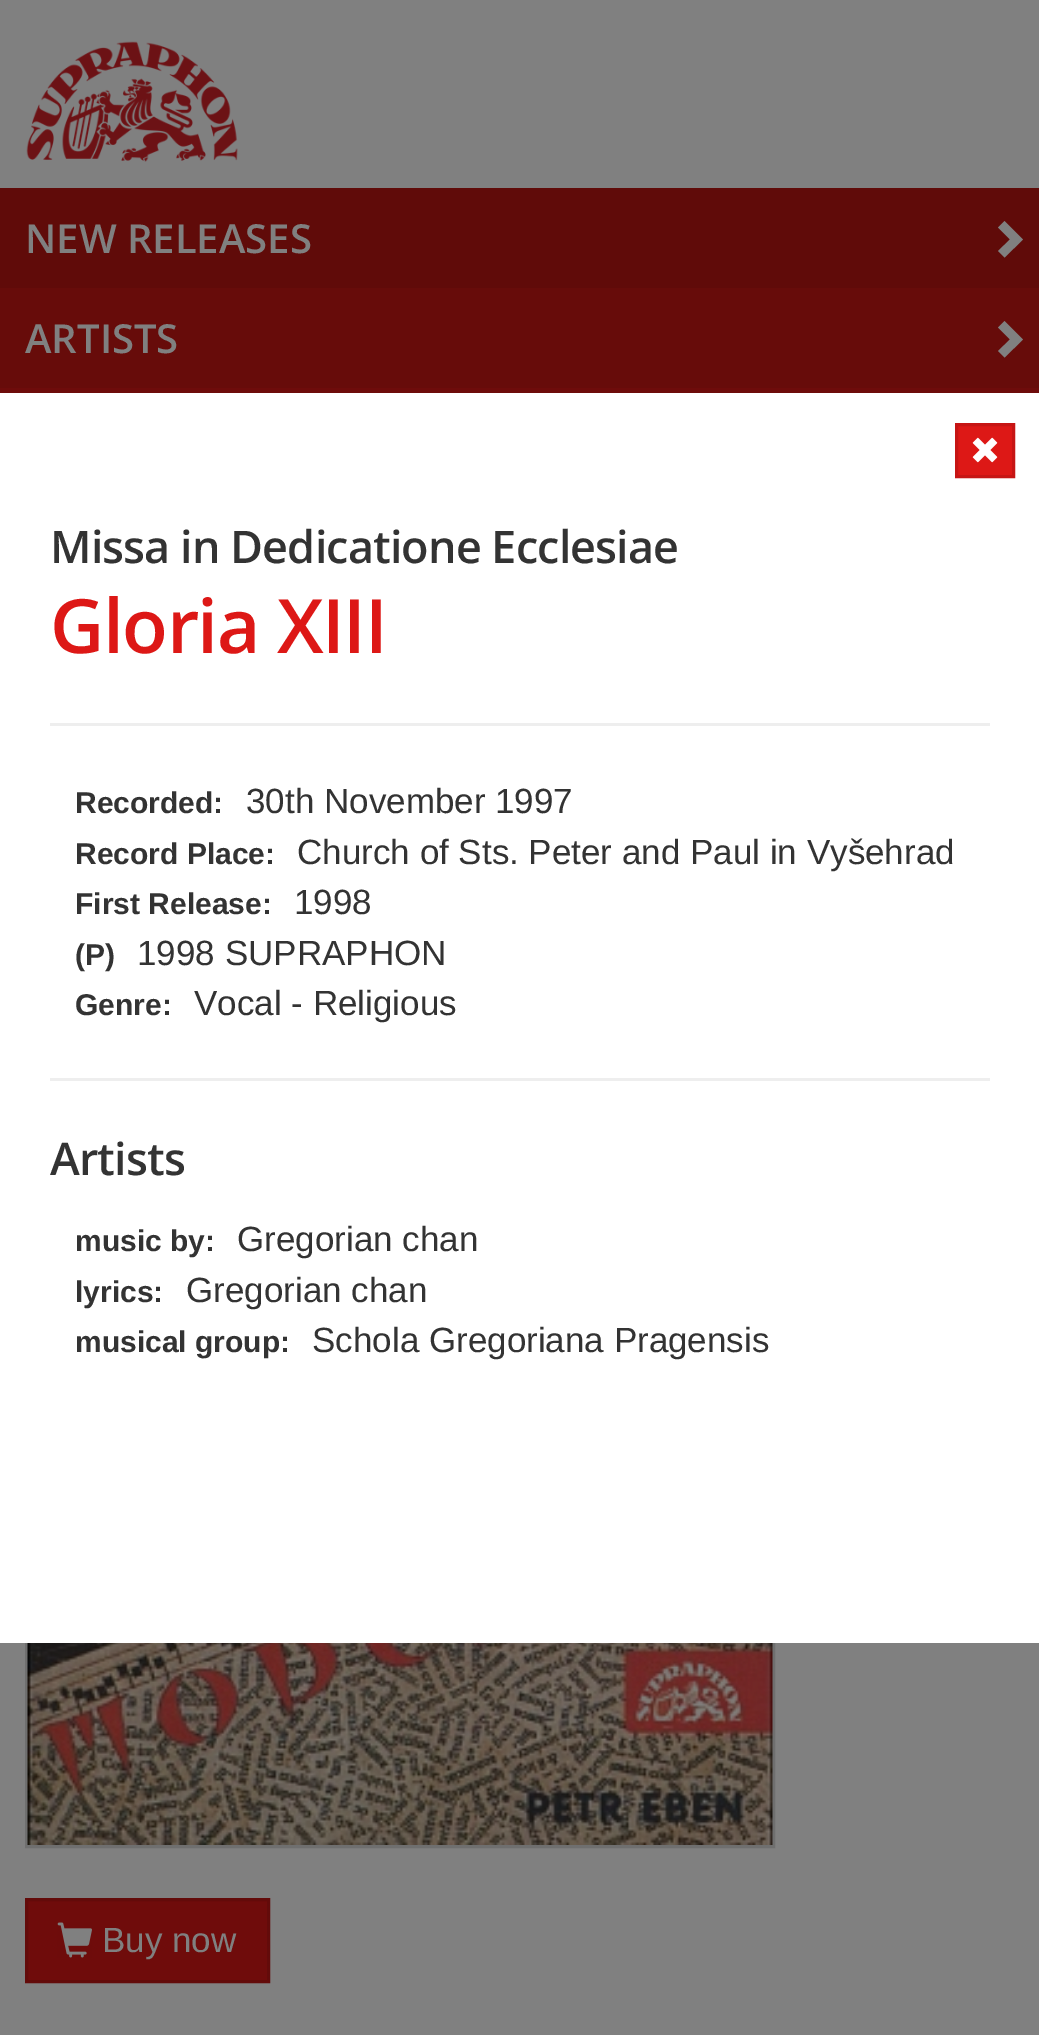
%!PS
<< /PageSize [1039 2035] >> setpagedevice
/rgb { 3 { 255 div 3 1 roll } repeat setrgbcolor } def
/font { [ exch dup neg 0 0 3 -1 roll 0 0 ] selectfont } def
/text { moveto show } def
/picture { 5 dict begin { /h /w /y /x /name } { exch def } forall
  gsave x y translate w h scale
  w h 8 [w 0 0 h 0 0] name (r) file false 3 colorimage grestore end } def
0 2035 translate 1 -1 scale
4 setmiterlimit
128 128 128 rgb
0 0 1039 2035 rectfill
(img_01.rgb) 26 41 212 121 picture
96 11 9 rgb
0 188 1039 100 rectfill
128 128 128 rgb
1023 239.5 moveto -18.5 18 rlineto -6.5 -6.5 rlineto 12 -11.5 rlineto -12 -12 rlineto 6.5 -6.5 rlineto closepath fill
103 12 10 rgb
0 288 1039 100 rectfill
128 128 128 rgb
1023 339.5 moveto -18.5 18 rlineto -6.5 -6.5 rlineto 12 -11.5 rlineto -12 -12 rlineto 6.5 -6.5 rlineto closepath fill
110 12 11 rgb
0 388 1039 5 rectfill
111 111 111 rgb
3 setlinewidth
26.5 1099.5 747 747 rectstroke
255 255 255 rgb
0 393 1039 1250 rectfill
221 24 22 rgb
956.5 424.5 moveto 57 0 rlineto 0 52 rlineto -57 0 rlineto closepath gsave fill grestore
198 21 20 rgb
stroke
(img_02.rgb) 972 437 26 26 picture
238 238 238 rgb
50 723 940 3 rectfill
50 1078 940 3 rectfill
(img_03.rgb) 27 1643 746 202 picture
111 12 11 rgb
26.5 1899.5 moveto 242 0 rlineto 0 82 rlineto -242 0 rlineto closepath gsave fill grestore
99 11 10 rgb
stroke
(img_04.rgb) 57 1922 35 36 picture
/OpenSans-SemiBold 40 font
128 128 128 rgb
(NEW RELEASES) 25 253 text
(ARTISTS) 25 353 text
/OpenSans-SemiBold 45 font
51 51 51 rgb
50 563 moveto -0.9 0 (Missa in Dedicatione Ecclesiae) ashow
/OpenSans-SemiBold 75 font
221 24 22 rgb
50 653 moveto -1.5 0 (Gloria XIII) ashow
/LiberationSans-Bold 30 font
51 51 51 rgb
(Recorded:) 75 813 text
/LiberationSans-Regular 35 font
(30th November 1997) 246 813 text
/LiberationSans-Bold 30 font
(Record Place:) 75 864 text
/LiberationSans-Regular 35 font
(Church of Sts. Peter and Paul in Vyšehrad) 297 864 text
/LiberationSans-Bold 30 font
(First Release:) 75 914 text
/LiberationSans-Regular 35 font
(1998) 294 914 text
/LiberationSans-Bold 30 font
(\(P\)) 75 965 text
/LiberationSans-Regular 35 font
(1998 SUPRAPHON) 137 965 text
/LiberationSans-Bold 30 font
(Genre:) 75 1015 text
/LiberationSans-Regular 35 font
(Vocal - Religious) 194 1015 text
/OpenSans-SemiBold 45 font
50 1175 moveto -0.9 0 (Artists) ashow
/LiberationSans-Bold 30 font
(music by:) 75 1251 text
/LiberationSans-Regular 35 font
(Gregorian chan) 237 1251 text
/LiberationSans-Bold 30 font
(lyrics:) 75 1302 text
/LiberationSans-Regular 35 font
(Gregorian chan) 186 1302 text
/LiberationSans-Bold 30 font
(musical group:) 75 1352 text
/LiberationSans-Regular 35 font
(Schola Gregoriana Pragensis) 312 1352 text
128 128 128 rgb
(Buy now) 102 1952 text
showpage
